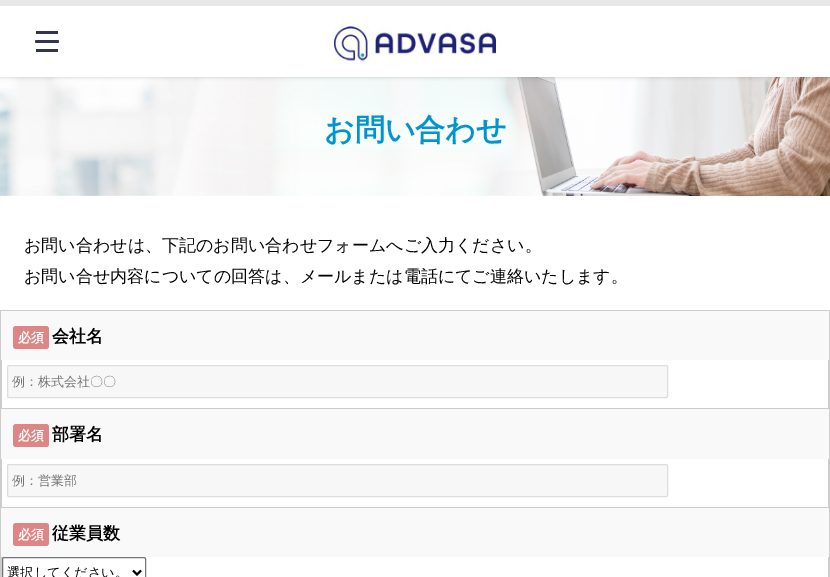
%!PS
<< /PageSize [830 577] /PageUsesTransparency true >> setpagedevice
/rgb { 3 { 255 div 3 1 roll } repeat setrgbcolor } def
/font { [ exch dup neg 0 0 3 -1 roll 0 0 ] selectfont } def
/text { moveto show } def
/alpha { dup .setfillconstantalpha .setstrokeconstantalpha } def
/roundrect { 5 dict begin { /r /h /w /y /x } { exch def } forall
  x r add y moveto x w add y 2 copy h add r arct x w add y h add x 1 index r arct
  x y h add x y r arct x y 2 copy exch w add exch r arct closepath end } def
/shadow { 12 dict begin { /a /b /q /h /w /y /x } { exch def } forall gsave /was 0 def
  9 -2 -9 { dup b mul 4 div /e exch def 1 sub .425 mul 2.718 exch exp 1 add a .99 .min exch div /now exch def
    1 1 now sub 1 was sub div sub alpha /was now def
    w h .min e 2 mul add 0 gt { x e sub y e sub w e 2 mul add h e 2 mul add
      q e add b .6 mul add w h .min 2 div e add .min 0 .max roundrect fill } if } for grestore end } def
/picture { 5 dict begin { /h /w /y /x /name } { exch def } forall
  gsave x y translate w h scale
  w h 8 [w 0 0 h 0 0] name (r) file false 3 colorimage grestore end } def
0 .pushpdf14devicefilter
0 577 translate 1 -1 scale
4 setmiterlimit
255 255 255 rgb
0 0 830 577 rectfill
(img_02.rgb) 0 77 830 119 picture
0 0 0 rgb
0 0 830 77 0 2 0.2 shadow
255 255 255 rgb
0 6 830 71 rectfill
232 232 232 rgb
0 0 830 6 rectfill
51 51 85 rgb
36 31 22 3 rectfill
35 40 24 3 1.5 roundrect fill
36 49 22 3 rectfill
(img_01.rgb) 334 26 162 37 picture
204 204 204 rgb
0.5 310.5 829 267 rectstroke
249 249 249 rgb
1 311 828 49 rectfill
222 134 134 rgb
13 326 36 23 3 roundrect fill
204 204 204 rgb
828 360 1 49 rectfill
1 408 828 1 rectfill
1 360 1 49 rectfill
247 247 247 rgb
7.5 365.5 660 32 1.5 roundrect gsave fill grestore
221 221 221 rgb
stroke
249 249 249 rgb
1 409 828 50 rectfill
222 134 134 rgb
13 424 36 23 3 roundrect fill
204 204 204 rgb
828 459 1 49 rectfill
1 507 828 1 rectfill
1 459 1 49 rectfill
247 247 247 rgb
7.5 464.5 660 32 1.5 roundrect gsave fill grestore
221 221 221 rgb
stroke
249 249 249 rgb
1 508 828 49 rectfill
222 134 134 rgb
13 523 36 23 3 roundrect fill
204 204 204 rgb
828 557 1 20 rectfill
1 557 1 20 rectfill
118 118 118 rgb
2.5 557.5 143 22 1.5 roundrect stroke
0 0 0 rgb
2 setlinewidth
133 570.5 moveto 4 4 rlineto 4 -4 rlineto stroke
/WenQuanYiZenHei-Bold 30 font
0 148 209 rgb
(お問い合わせ) 324 140 text
/WenQuanYiZenHei-Medium 17 font
0 0 0 rgb
(お問い合わせは、下記のお問い合わせフォームへご入力ください。) 24 251 text
(お問い合せ内容についての回答は、メールまたは電話にてご連絡いたします。) 24 282 text
/WenQuanYiZenHei-Bold 13 font
255 255 255 rgb
(必須) 18 342 text
/WenQuanYiZenHei-Bold 17 font
0 0 0 rgb
(会社名) 52 342 text
/WenQuanYiZenHei-Medium 13 font
117 117 117 rgb
(例：株式会社〇〇) 12 386 text
/WenQuanYiZenHei-Bold 13 font
255 255 255 rgb
(必須) 18 440 text
/WenQuanYiZenHei-Bold 17 font
0 0 0 rgb
(部署名) 52 440 text
/WenQuanYiZenHei-Medium 13 font
117 117 117 rgb
(例：営業部) 12 485 text
/WenQuanYiZenHei-Bold 13 font
255 255 255 rgb
(必須) 18 539 text
/WenQuanYiZenHei-Bold 17 font
0 0 0 rgb
(従業員数) 52 539 text
/WenQuanYiZenHei-Medium 13.25 font
(選択してください。) 7 577 text
.poppdf14devicefilter showpage
